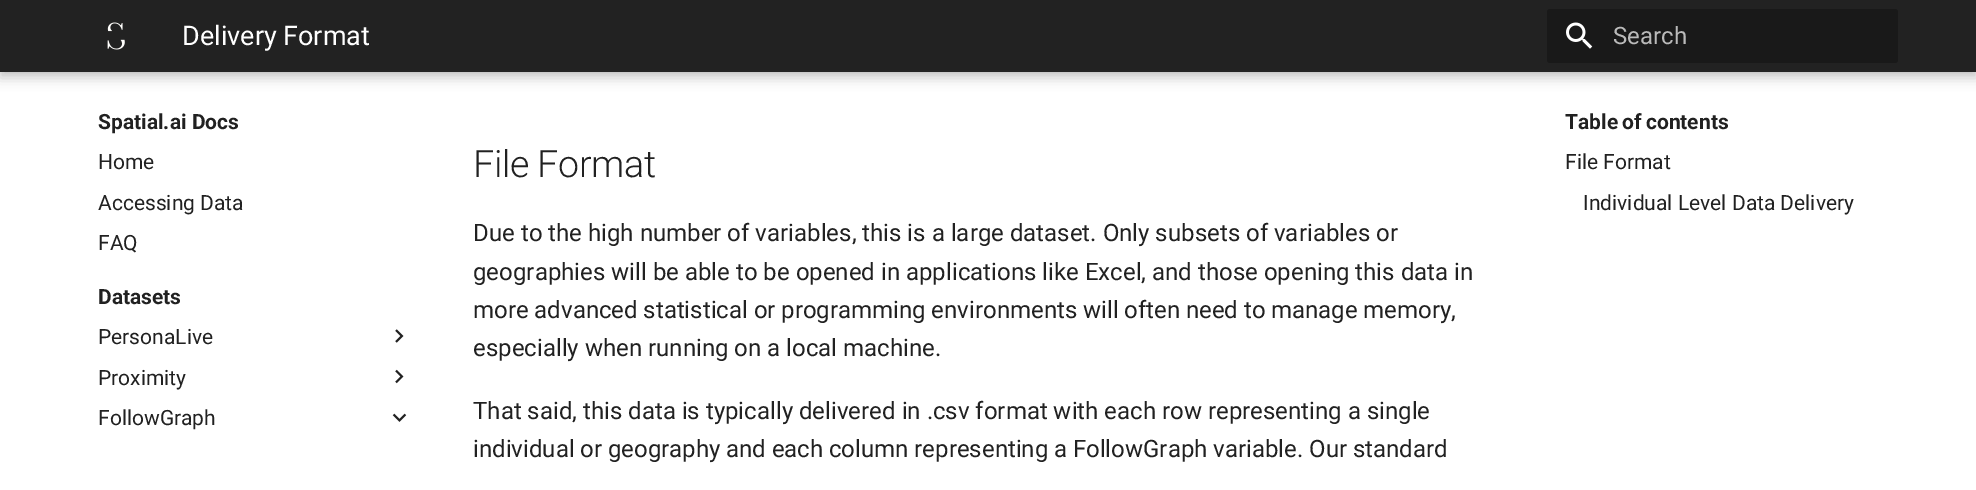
%!PS
<< /PageSize [1976 490] /PageUsesTransparency true >> setpagedevice
/rgb { 3 { 255 div 3 1 roll } repeat setrgbcolor } def
/font { [ exch dup neg 0 0 3 -1 roll 0 0 ] selectfont } def
/text { moveto show } def
/alpha { dup .setfillconstantalpha .setstrokeconstantalpha } def
/roundrect { 5 dict begin { /r /h /w /y /x } { exch def } forall
  x r add y moveto x w add y 2 copy h add r arct x w add y h add x 1 index r arct
  x y h add x y r arct x y 2 copy exch w add exch r arct closepath end } def
/shadow { 12 dict begin { /a /b /q /h /w /y /x } { exch def } forall gsave /was 0 def
  9 -2 -9 { dup b mul 4 div /e exch def 1 sub .425 mul 2.718 exch exp 1 add a .99 .min exch div /now exch def
    1 1 now sub 1 was sub div sub alpha /was now def
    w h .min e 2 mul add 0 gt { x e sub y e sub w e 2 mul add h e 2 mul add
      q e add b .6 mul add w h .min 2 div e add .min 0 .max roundrect fill } if } for grestore end } def
/picture { 5 dict begin { /h /w /y /x /name } { exch def } forall
  gsave x y translate w h scale
  w h 8 [w 0 0 h 0 0] name (r) file false 3 colorimage grestore end } def
0 .pushpdf14devicefilter
0 490 translate 1 -1 scale
4 setmiterlimit
255 255 255 rgb
0 0 1976 490 rectfill
0 0 0 rgb
0 6 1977 72 0 6 0.2 shadow
0 0 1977 72 0 3 0.1 shadow
34 34 34 rgb
0 0 1976 72 rectfill
(img_01.rgb) 107 22 18 28 picture
25 25 25 rgb
1547 9 351 54 3 roundrect fill
(img_02.rgb) 1566 22 27 27 picture
(img_03.rgb) 395 329 9 14 picture
(img_04.rgb) 395 369 9 15 picture
(img_05.rgb) 392 413 15 9 picture
/Roboto-Regular 27 font
255 255 255 rgb
(Delivery Format) 182 45 text
/Roboto-Regular 24 font
186 186 186 rgb
(Search) 1613 44 text
/Roboto-Bold 21 font
33 33 33 rgb
(Spatial.ai Docs) 98 129 text
/Roboto-Regular 21 font
(Home) 98 169 text
(Accessing Data) 98 210 text
(FAQ) 98 250 text
/Roboto-Bold 21 font
(Datasets) 98 304 text
/Roboto-Regular 21 font
(PersonaLive) 98 344 text
(Proximity) 98 385 text
(FollowGraph) 98 425 text
/Roboto-Light 37.5 font
473 177 moveto -0.4 0 (File Format) ashow
/Roboto-Regular 24 font
(Due to the high number of variables, this is a large dataset. Only subsets of variables or) 473 241 text
(geographies will be able to be opened in applications like Excel, and those opening this data in) 473 280 text
473 318 moveto -0.25 0 32 (more advanced statistical or programming environments will often need to manage memory,) widthshow
(especially when running on a local machine.) 473 356 text
(That said, this data is typically delivered in .csv format with each row representing a single) 473 419 text
473 457 moveto -0.25 0 32 (individual or geography and each column representing a FollowGraph variable.) widthshow
(Our standard) 1309 457 text
/Roboto-Bold 21 font
1565 129 moveto -1 0 32 (Table of contents) widthshow
/Roboto-Regular 21 font
(File Format) 1565 169 text
(Individual Level Data Delivery) 1583 210 text
.poppdf14devicefilter showpage
